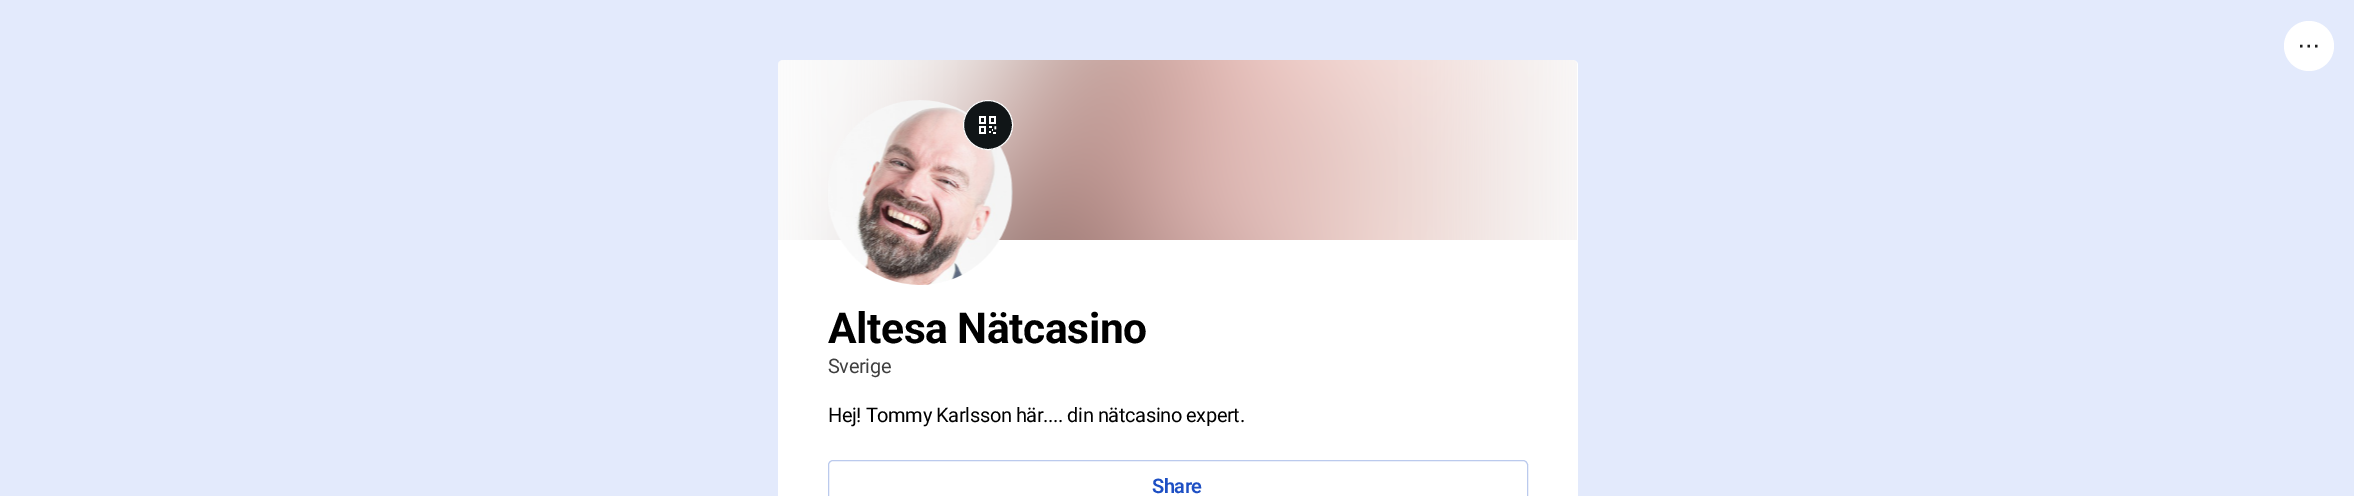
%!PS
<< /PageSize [2354 496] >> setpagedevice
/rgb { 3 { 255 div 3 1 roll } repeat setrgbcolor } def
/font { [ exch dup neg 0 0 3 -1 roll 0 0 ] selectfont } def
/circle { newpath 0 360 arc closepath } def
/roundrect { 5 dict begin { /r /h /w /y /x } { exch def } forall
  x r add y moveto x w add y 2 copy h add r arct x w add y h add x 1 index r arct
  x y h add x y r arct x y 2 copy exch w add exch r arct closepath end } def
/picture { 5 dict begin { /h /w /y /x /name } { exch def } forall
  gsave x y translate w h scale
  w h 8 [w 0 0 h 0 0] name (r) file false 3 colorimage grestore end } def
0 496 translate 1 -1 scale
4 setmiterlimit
227 234 252 rgb
0 0 2354 496 rectfill
255 255 255 rgb
2309 46 25 circle fill
30 30 30 rgb
2.5 setlinewidth
2310 46 moveto -2.5 0 rlineto 2317.5 46 moveto -2.5 0 rlineto 2302.5 46 moveto -2.5 0 rlineto stroke
255 255 255 rgb
778 60 800 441 5 roundrect fill
(img_01.rgb) 778 60 799 180 picture
(img_02.rgb) 828 100 185 185 picture
16 21 23 rgb
988 125 24.5 circle gsave fill grestore
255 255 255 rgb
1 setlinewidth
stroke
(img_03.rgb) 979 116 18 18 picture
187 202 237 rgb
828.5 460.5 699 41 4.5 roundrect stroke
/Roboto-Bold 42.5 font
0 0 0 rgb
828 343 moveto -0.4 0 (Altesa Nätcasino) ashow
/Roboto-Regular 20 font
64 64 64 rgb
828 373 moveto -0.4 0 (Sverige) ashow
0 0 0 rgb
828 422 moveto -0.4 0 (Hej! Tommy Karlsson här.... din nätcasino expert.) ashow
/Roboto-SemiBold 20 font
29 79 196 rgb
1152 493 moveto -0.5 0 (Share) ashow
showpage
